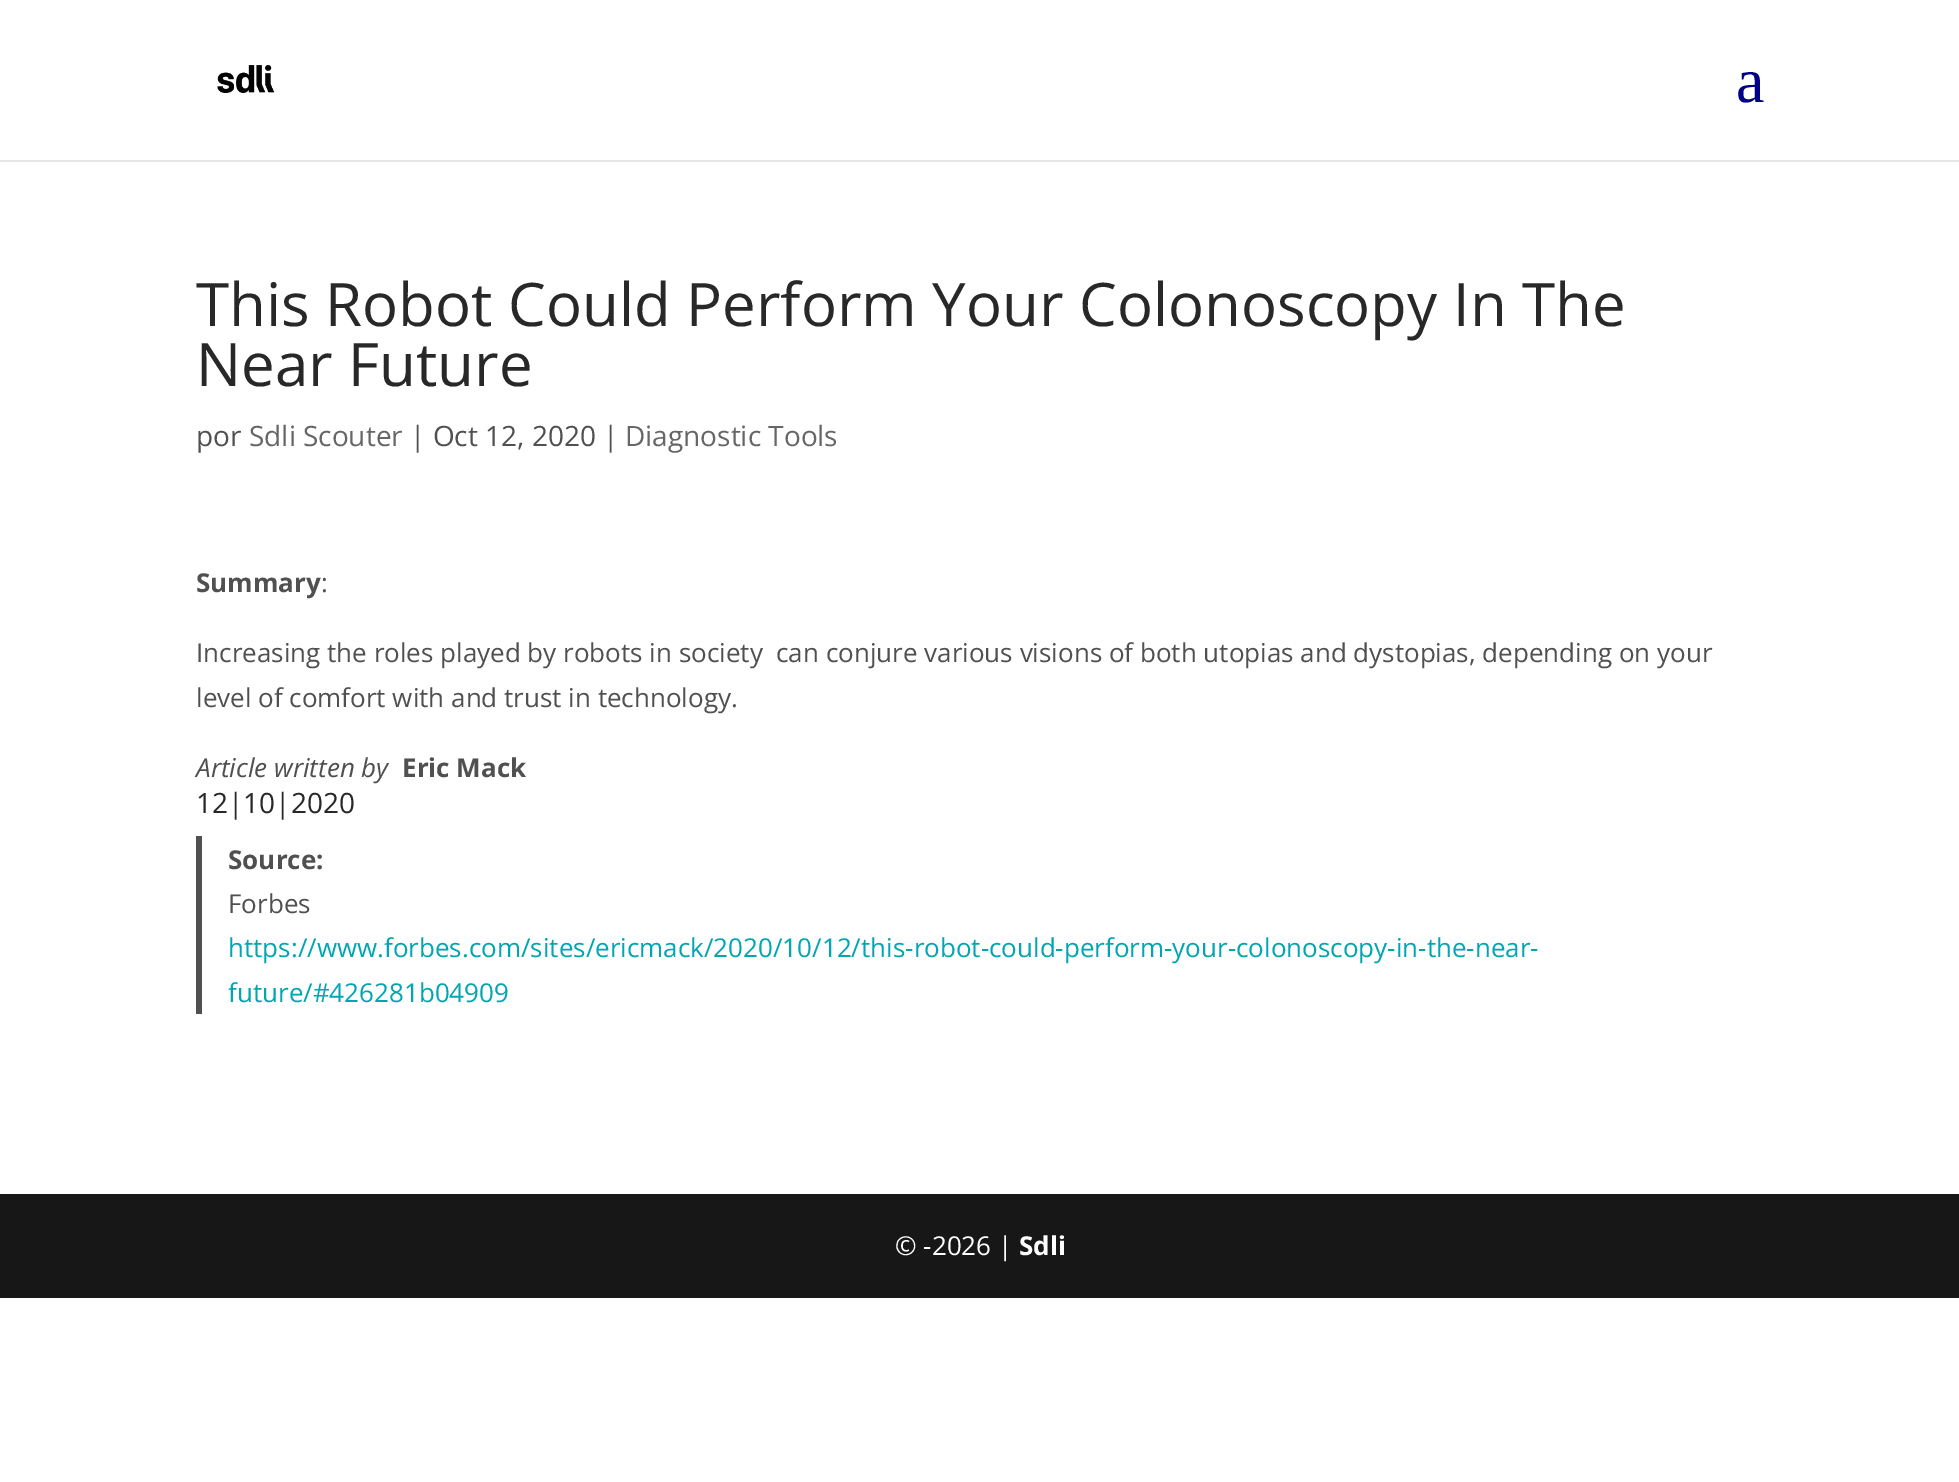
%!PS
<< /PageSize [1959 1482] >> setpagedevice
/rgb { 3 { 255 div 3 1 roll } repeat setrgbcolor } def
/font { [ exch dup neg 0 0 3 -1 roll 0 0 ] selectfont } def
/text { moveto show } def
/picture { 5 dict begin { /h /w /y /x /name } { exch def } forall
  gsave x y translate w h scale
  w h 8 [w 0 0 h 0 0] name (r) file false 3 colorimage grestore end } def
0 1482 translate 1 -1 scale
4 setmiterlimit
255 255 255 rgb
0 0 1959 1482 rectfill
230 230 230 rgb
0 160 1959 2 rectfill
(img_01.rgb) 217 65 58 28 picture
80 80 80 rgb
196 836 6 178 rectfill
23 23 23 rgb
0 1194 1959 104 rectfill
/LiberationSerif-Regular 64 font
0 0 133 rgb
(a) 1736 102 text
/OpenSans-Regular 60 font
40 40 40 rgb
(This Robot Could Perform Your Colonoscopy In The) 196 326 text
(Near Future) 196 386 text
/OpenSans-Regular 28 font
80 80 80 rgb
(por) 196 446 text
102 102 102 rgb
(Sdli Scouter) 249 446 text
80 80 80 rgb
(| Oct 12, 2020 |) 410 446 text
102 102 102 rgb
(Diagnostic Tools) 625 446 text
/OpenSans-Bold 26 font
80 80 80 rgb
(Summary) 196 592 text
/OpenSans-Regular 26 font
(:) 321 592 text
(Increasing the roles played by robots in society  can conjure various visions of both utopias and dystopias, depending on your) 196 662 text
(level of comfort with and trust in technology.) 196 707 text
/OpenSans-Italic 26 font
(Article written by) 196 777 text
/OpenSans-Bold 26 font
(Eric Mack) 402 777 text
/OpenSans-Regular 28 font
40 40 40 rgb
(12|10|2020) 196 813 text
/OpenSans-Bold 26 font
80 80 80 rgb
(Source:) 228 869 text
/OpenSans-Regular 26 font
(Forbes) 228 913 text
0 166 178 rgb
(https://www.forbes.com/sites/ericmack/2020/10/12/this-robot-could-perform-your-colonoscopy-in-the-near-) 228 957 text
(future/#426281b04909) 228 1002 text
255 255 255 rgb
(© -2026 |) 895 1255 text
/OpenSans-Bold 26 font
(Sdli) 1019 1255 text
showpage
